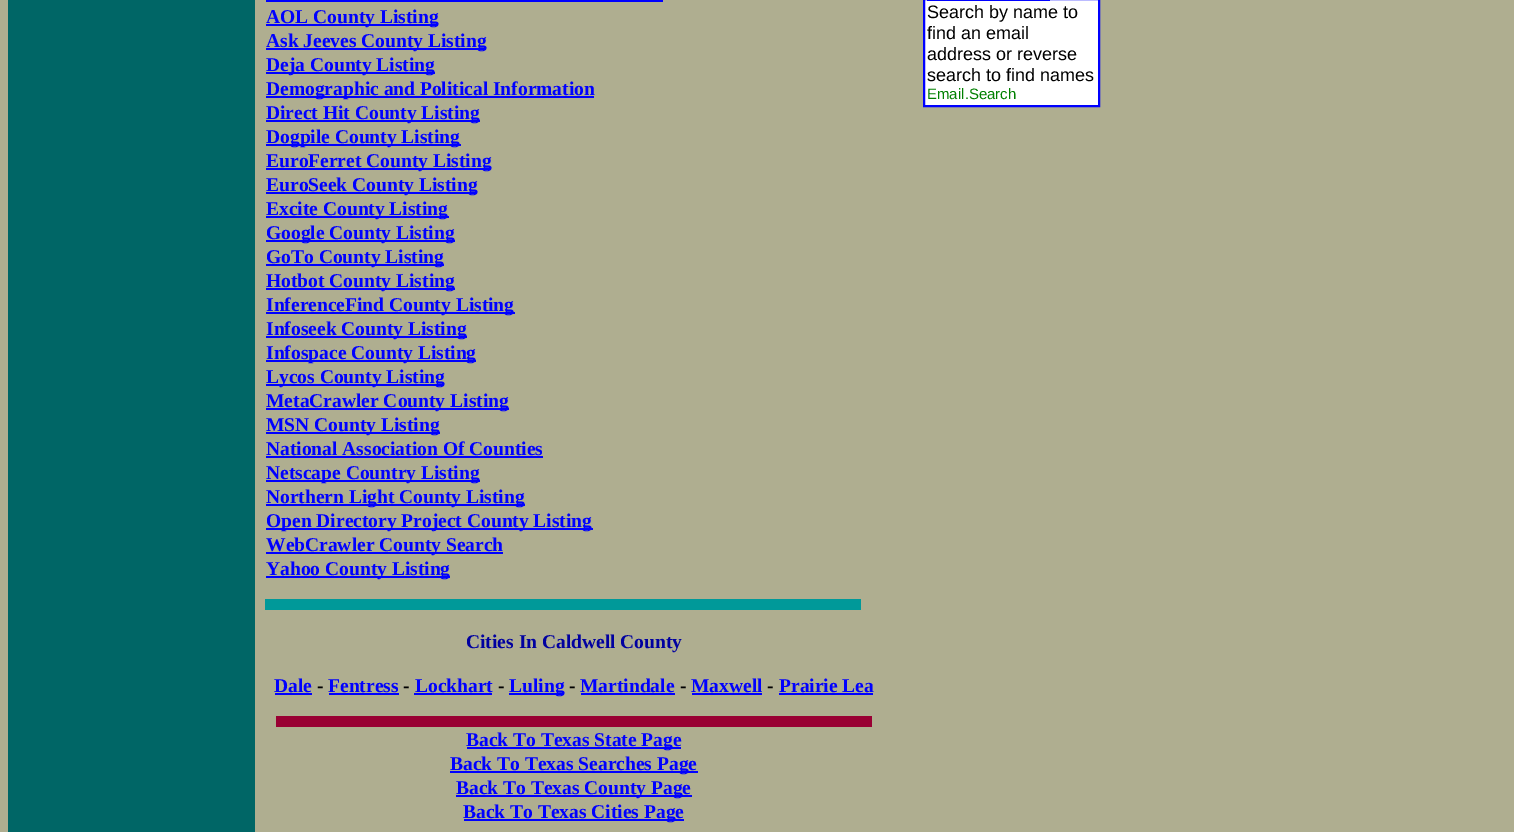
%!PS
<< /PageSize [1514 832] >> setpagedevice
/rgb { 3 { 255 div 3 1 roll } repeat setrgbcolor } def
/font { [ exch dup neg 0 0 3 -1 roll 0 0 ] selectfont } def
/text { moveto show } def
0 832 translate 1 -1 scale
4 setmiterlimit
175 174 144 rgb
0 0 1514 832 rectfill
0 102 102 rgb
8 0 247 832 rectfill
0 0 255 rgb
266 0 397 2 rectfill
266 24 172 2 rectfill
266 48 220 2 rectfill
266 72 169 2 rectfill
266 96 328 2 rectfill
266 120 214 2 rectfill
266 144 195 2 rectfill
266 168 225 2 rectfill
266 192 211 2 rectfill
266 216 183 2 rectfill
266 240 189 2 rectfill
266 264 178 2 rectfill
266 288 189 2 rectfill
266 312 249 2 rectfill
266 336 201 2 rectfill
266 360 210 2 rectfill
266 384 178 2 rectfill
266 408 243 2 rectfill
266 432 174 2 rectfill
266 456 277 2 rectfill
266 480 214 2 rectfill
266 504 259 2 rectfill
266 528 327 2 rectfill
266 552 237 2 rectfill
266 576 184 2 rectfill
0 153 153 rgb
265 599 596 11 rectfill
0 0 255 rgb
275 693 37 2 rectfill
329 693 70 2 rectfill
414 693 78 2 rectfill
509 693 55 2 rectfill
581 693 94 2 rectfill
692 693 70 2 rectfill
779 693 94 2 rectfill
153 0 51 rgb
276 716 596 11 rectfill
0 0 255 rgb
467 747 214 2 rectfill
450 771 248 2 rectfill
456 795 236 2 rectfill
464 819 220 2 rectfill
255 255 255 rgb
924 -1 moveto 175 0 rlineto 0 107 rlineto -175 0 rlineto closepath gsave fill grestore
0 0 255 rgb
2 setlinewidth
stroke
927 0 123 1 rectfill
/LiberationSerif-Bold 19.5 font
(AOL County Listing) 266 23 text
(Ask Jeeves County Listing) 266 47 text
(Deja County Listing) 266 71 text
(Demographic and Political Information) 266 95 text
(Direct Hit County Listing) 266 119 text
(Dogpile County Listing) 266 143 text
(EuroFerret County Listing) 266 167 text
(EuroSeek County Listing) 266 191 text
(Excite County Listing) 266 215 text
(Google County Listing) 266 239 text
(GoTo County Listing) 266 263 text
(Hotbot County Listing) 266 287 text
(InferenceFind County Listing) 266 311 text
(Infoseek County Listing) 266 335 text
(Infospace County Listing) 266 359 text
(Lycos County Listing) 266 383 text
(MetaCrawler County Listing) 266 407 text
(MSN County Listing) 266 431 text
(National Association Of Counties) 266 455 text
(Netscape Country Listing) 266 479 text
(Northern Light County Listing) 266 503 text
(Open Directory Project County Listing) 266 527 text
(WebCrawler County Search) 266 551 text
(Yahoo County Listing) 266 575 text
0 0 160 rgb
(Cities In Caldwell County) 466 648 text
0 0 255 rgb
(Dale) 274 692 text
0 0 0 rgb
(-) 317 692 text
0 0 255 rgb
(Fentress) 328 692 text
0 0 0 rgb
(-) 403 692 text
0 0 255 rgb
(Lockhart) 415 692 text
0 0 0 rgb
(-) 498 692 text
0 0 255 rgb
(Luling) 509 692 text
0 0 0 rgb
(-) 569 692 text
0 0 255 rgb
(Martindale) 580 692 text
0 0 0 rgb
(-) 680 692 text
0 0 255 rgb
(Maxwell) 691 692 text
0 0 0 rgb
(-) 767 692 text
0 0 255 rgb
(Prairie Lea) 779 692 text
(Back To Texas State Page) 466 746 text
(Back To Texas Searches Page) 450 770 text
(Back To Texas County Page) 456 794 text
(Back To Texas Cities Page) 463 818 text
/LiberationSans-Regular 18 font
0 0 0 rgb
(Search by name to) 927 18 text
(find an email) 927 39 text
(address or reverse) 927 60 text
(search to find names) 927 81 text
/LiberationSans-Regular 15 font
0 128 0 rgb
(Email.Search) 927 99 text
showpage
